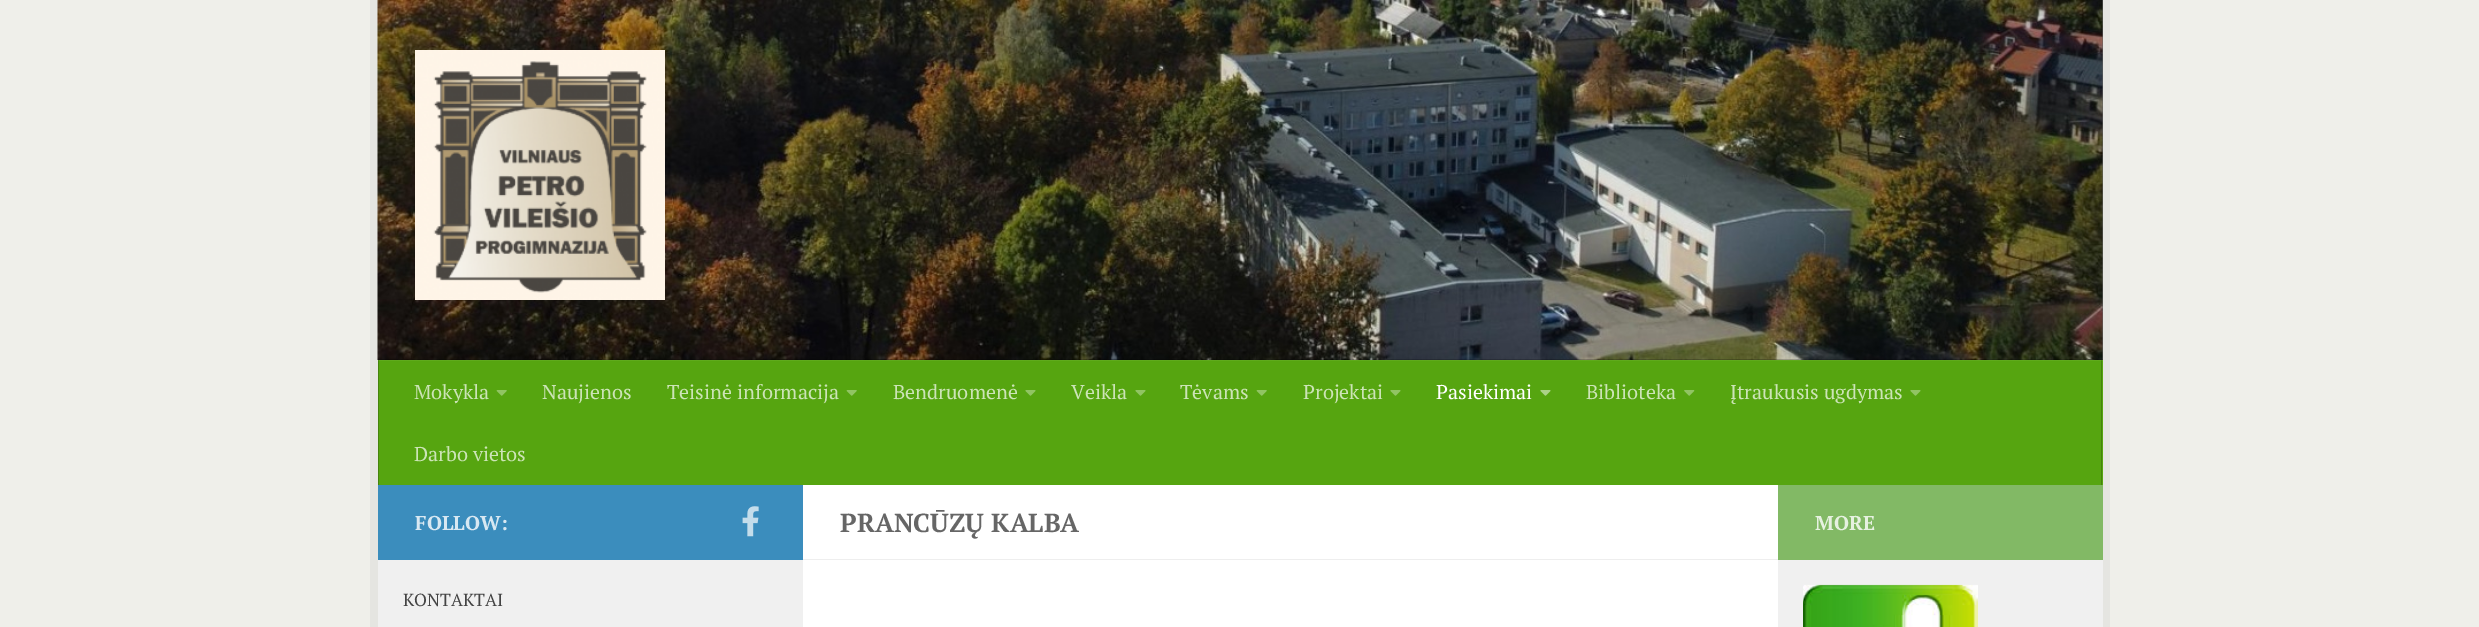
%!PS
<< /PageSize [2479 627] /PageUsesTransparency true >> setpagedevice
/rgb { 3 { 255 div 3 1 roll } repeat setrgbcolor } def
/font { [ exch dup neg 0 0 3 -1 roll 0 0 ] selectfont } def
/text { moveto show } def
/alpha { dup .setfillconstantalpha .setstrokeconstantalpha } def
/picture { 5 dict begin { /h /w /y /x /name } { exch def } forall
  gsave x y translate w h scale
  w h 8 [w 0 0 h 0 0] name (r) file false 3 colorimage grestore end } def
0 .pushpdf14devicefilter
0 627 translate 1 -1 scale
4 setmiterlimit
239 239 234 rgb
0 0 2479 627 rectfill
229 229 225 rgb
370 0 8 627 rectfill
2103 0 7 627 rectfill
99 99 99 rgb
2102 0 1 360 rectfill
(img_01.rgb) 377 0 1726 360 picture
(img_02.rgb) 415 50 250 250 picture
0.2 alpha
0 0 0 rgb
378 359 moveto 0 1 rlineto 1724 0 rlineto 0 124 rlineto 1 0 rlineto 0 -125 rlineto closepath fill
1 alpha
86 165 16 rgb
379 360 1724 125 rectfill
69 132 13 rgb
2101 360 1 125 rectfill
378 360 1 125 rectfill
0.05 alpha
255 255 255 rgb
378 360 1725 1 rectfill
1 alpha
(img_03.rgb) 496 390 11 6 picture
(img_03.rgb) 846 390 11 6 picture
(img_04.rgb) 1025 390 11 6 picture
(img_04.rgb) 1135 390 11 6 picture
(img_03.rgb) 1256 390 11 6 picture
(img_04.rgb) 1390 390 11 6 picture
(img_05.rgb) 1540 390 11 6 picture
(img_06.rgb) 1684 390 11 6 picture
(img_04.rgb) 1910 390 11 6 picture
803 485 975 142 rectfill
59 141 189 rgb
378 485 425 75 rectfill
(img_07.rgb) 742 506 17 31 picture
238 238 238 rgb
803 559 975 1 rectfill
130 185 101 rgb
1778 485 325 75 rectfill
240 240 240 rgb
1778 560 325 67 rectfill
(img_08.rgb) 1803 584 175 43 picture
378 560 425 67 rectfill
/PTSerif-Regular 20 font
204 228 183 rgb
(Mokykla) 414 399 text
(Naujienos) 542 399 text
(Teisinė informacija) 667 399 text
(Bendruomenė) 893 399 text
(Veikla) 1071 399 text
(Tėvams) 1180 399 text
(Projektai) 1303 399 text
255 255 255 rgb
(Pasiekimai) 1436 399 text
204 228 183 rgb
(Biblioteka) 1586 399 text
(Įtraukusis ugdymas) 1730 399 text
(Darbo vietos) 414 461 text
/PTSerif-Bold 20 font
216 232 242 rgb
(FOLLOW:) 415 530 text
/PTSerif-Regular 17.5 font
68 68 68 rgb
(KONTAKTAI) 403 606 text
/PTSerif-Bold 26 font
102 102 102 rgb
(PRANCŪZŲ KALBA) 840 532 text
/PTSerif-Bold 20 font
230 241 224 rgb
(MORE) 1815 530 text
.poppdf14devicefilter showpage
